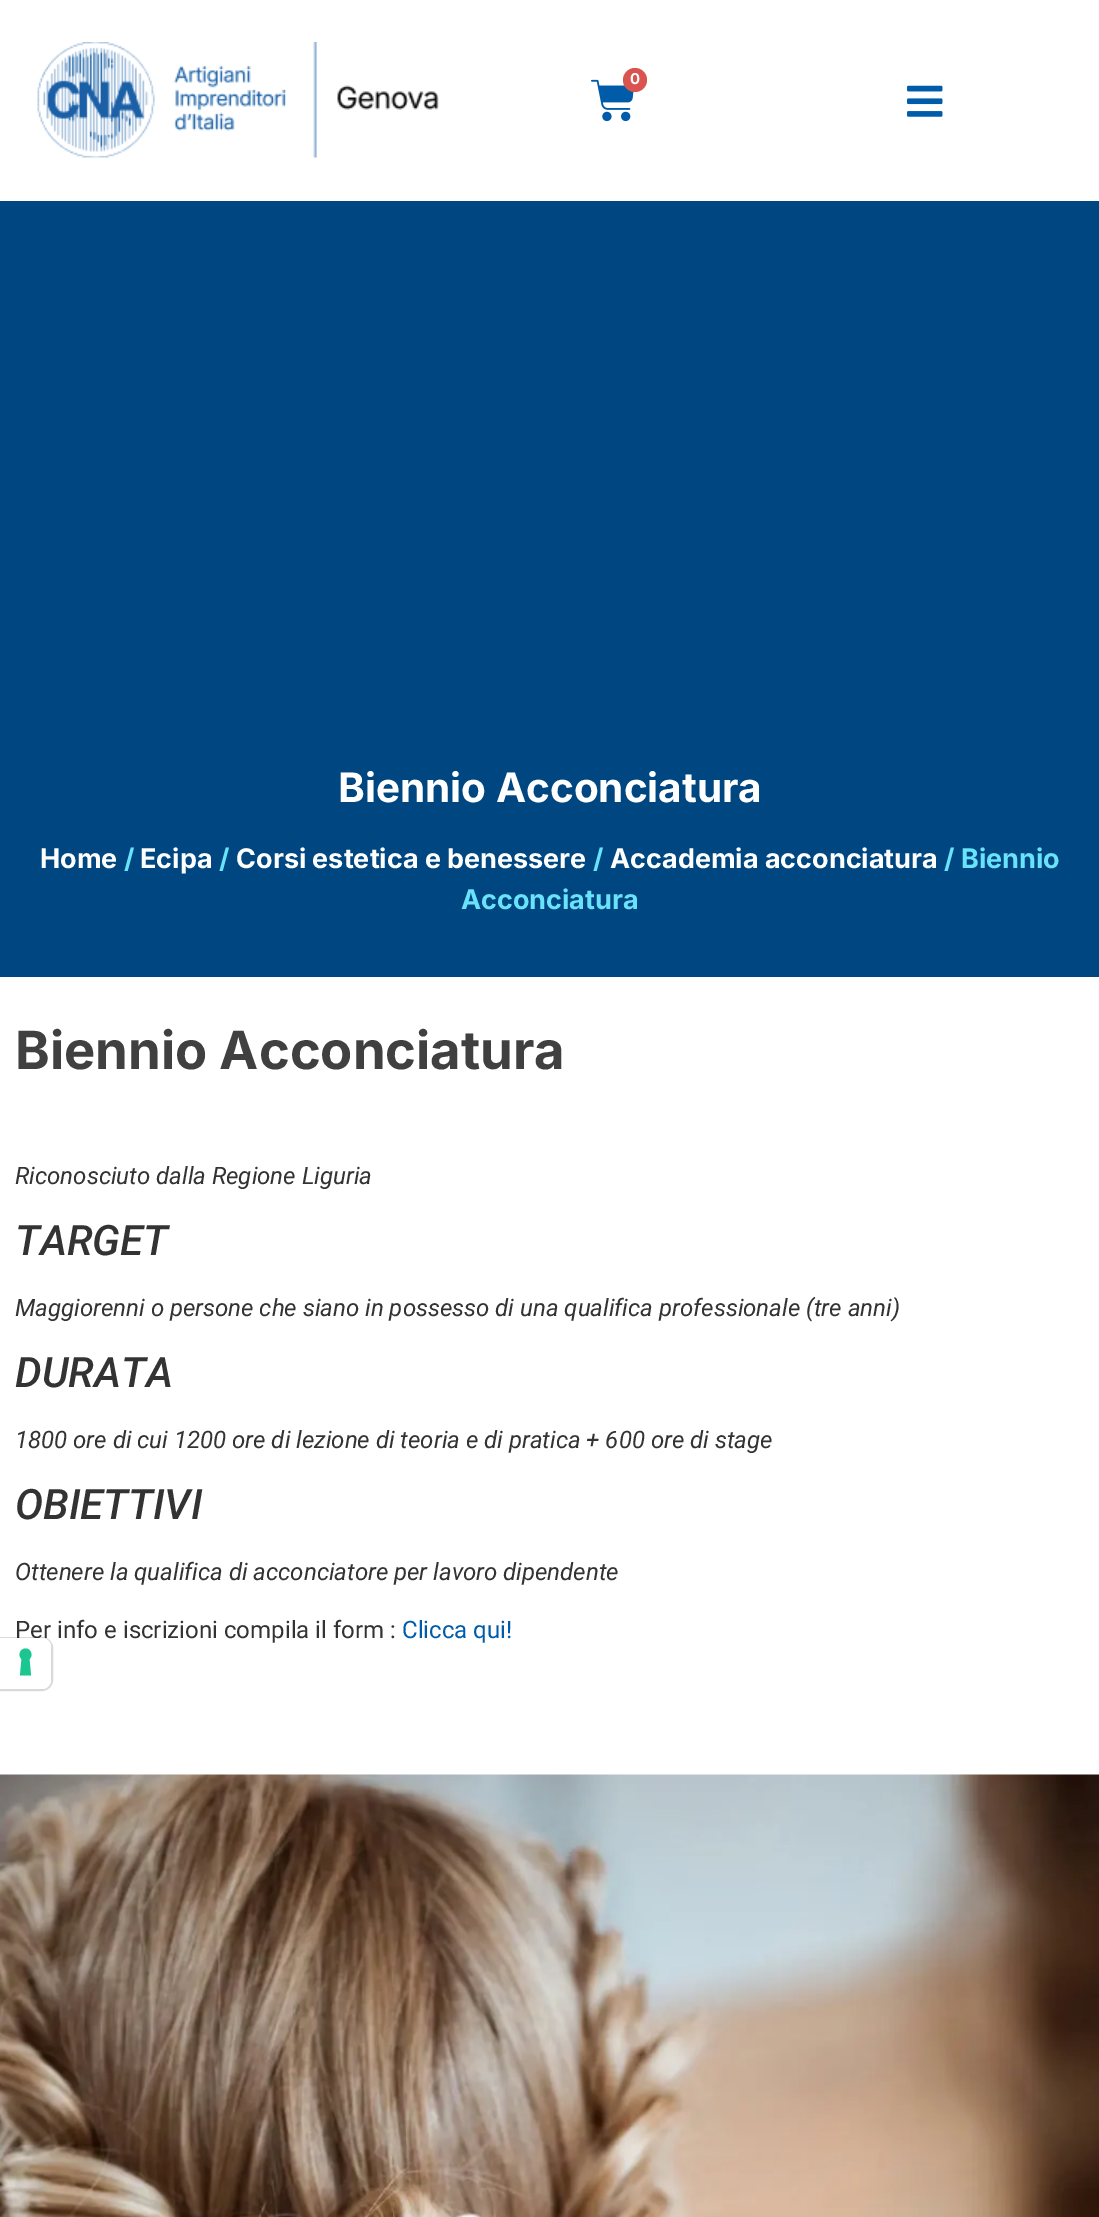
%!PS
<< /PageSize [1099 2217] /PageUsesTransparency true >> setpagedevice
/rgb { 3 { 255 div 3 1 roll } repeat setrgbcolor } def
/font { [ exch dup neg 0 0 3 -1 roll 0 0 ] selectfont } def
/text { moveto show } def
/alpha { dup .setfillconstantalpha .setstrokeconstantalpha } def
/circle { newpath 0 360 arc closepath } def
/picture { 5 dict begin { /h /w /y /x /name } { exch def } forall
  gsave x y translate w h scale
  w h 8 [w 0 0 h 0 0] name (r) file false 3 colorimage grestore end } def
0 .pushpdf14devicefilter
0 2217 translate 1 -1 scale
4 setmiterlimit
255 255 255 rgb
0 0 1099 2217 rectfill
(img_01.rgb) 37 42 402 116 picture
(img_02.rgb) 591 79 43 43 picture
217 83 79 rgb
635 80 12 circle fill
(img_03.rgb) 907 85 36 32 picture
0 71 129 rgb
0 201 1099 776 rectfill
(img_04.rgb) 0 1774 1099 443 picture
/Inter-Bold 15 font
255 255 255 rgb
(0) 630 84 text
/Inter-Bold 40.5 font
(Biennio Acconciatura) 338 802 text
/Inter-Bold 27 font
(Home) 40 868 text
104 227 250 rgb
(/) 124 868 text
255 255 255 rgb
(Ecipa) 140 868 text
104 227 250 rgb
(/) 219 868 text
255 255 255 rgb
(Corsi estetica e benessere) 236 868 text
104 227 250 rgb
(/) 593 868 text
255 255 255 rgb
(Accademia acconciatura) 610 868 text
104 227 250 rgb
(/ Biennio) 944 868 text
(Acconciatura) 461 909 text
/Inter-Bold 52.5 font
64 64 64 rgb
(Biennio Acconciatura) 15 1069 text
/Roboto-Italic 24 font
51 51 51 rgb
(Riconosciuto dalla Regione Liguria) 15 1184 text
/Roboto-MediumItalic 42 font
(TARGET) 15 1255 text
/Roboto-Italic 24 font
(Maggiorenni o persone che siano in possesso di una qualifica professionale \(tre anni\)) 15 1316 text
/Roboto-MediumItalic 42 font
(DURATA) 15 1387 text
/Roboto-Italic 24 font
(1800 ore di cui 1200 ore di lezione di teoria e di pratica + 600 ore di stage) 15 1448 text
/Roboto-MediumItalic 42 font
(OBIETTIVI) 15 1519 text
/Roboto-Italic 24 font
(Ottenere la qualifica di acconciatore per lavoro dipendente) 15 1580 text
/Roboto-Regular 24 font
(Per info e iscrizioni compila il form :) 15 1638 text
0 92 169 rgb
(Clicca qui!) 402 1638 text
0.15 alpha
0 0 0 rgb
2 setlinewidth
0 1638 moveto 42 0 rlineto 5.5 0 10 4.5 10 10 rcurveto 0 32 rlineto 0 5.5 -4.5 10 -10 10 rcurveto -42 0 rlineto closepath stroke
1 alpha
255 255 255 rgb
0 1638 moveto 42 0 rlineto 5 0 9 4 9 9 rcurveto 0 33 rlineto 0 5 -4 9 -9 9 rcurveto -42 0 rlineto closepath fill
28 198 145 rgb
25.5 1648.5 moveto 5.5 0 8 7 4 10.5 rcurveto 1.5 16.5 rlineto -11 0 rlineto 1.5 -16.5 rlineto -4 -3.5 -1.5 -10.5 4 -10.5 rcurveto closepath eofill
.poppdf14devicefilter showpage
